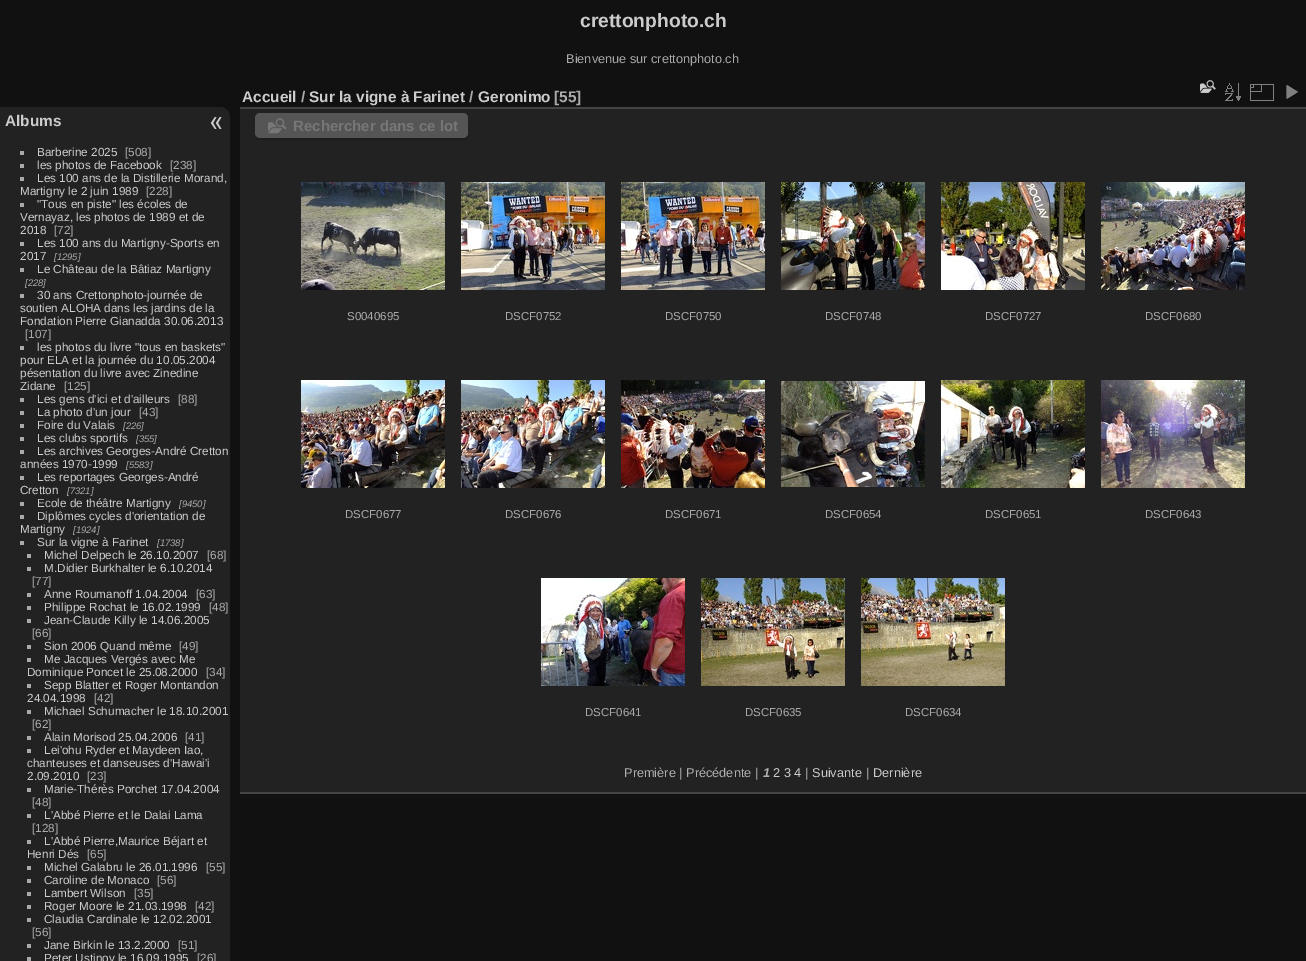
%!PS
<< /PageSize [1306 961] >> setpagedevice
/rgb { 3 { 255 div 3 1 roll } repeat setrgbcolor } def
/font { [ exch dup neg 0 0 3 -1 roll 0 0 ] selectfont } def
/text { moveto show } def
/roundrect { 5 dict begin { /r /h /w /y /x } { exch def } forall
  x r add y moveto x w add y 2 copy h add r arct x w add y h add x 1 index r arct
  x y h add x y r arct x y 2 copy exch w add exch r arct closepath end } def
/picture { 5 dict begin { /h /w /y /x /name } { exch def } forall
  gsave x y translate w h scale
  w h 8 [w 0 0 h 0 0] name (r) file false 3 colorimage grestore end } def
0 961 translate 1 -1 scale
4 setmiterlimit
17 17 17 rgb
0 0 1306 961 rectfill
34 34 34 rgb
0 107 moveto 220 0 rlineto 5.5 0 10 4.5 10 10 rcurveto 0 844 rlineto 0 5.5 -4.5 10 -10 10 rcurveto -220 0 rlineto closepath fill
170 170 170 rgb
20 151 4 4 rectfill
20 164 4 4 rectfill
20 177 4 4 rectfill
20 203 4 4 rectfill
20 242 4 4 rectfill
20 268 4 4 rectfill
20 294 4 4 rectfill
20 346 4 4 rectfill
20 398 4 4 rectfill
20 411 4 4 rectfill
20 424 4 4 rectfill
20 437 4 4 rectfill
20 450 4 4 rectfill
20 476 4 4 rectfill
20 502 4 4 rectfill
20 515 4 4 rectfill
20 541 4 4 rectfill
27 554 4 4 rectfill
27 567 4 4 rectfill
27 593 4 4 rectfill
27 606 4 4 rectfill
27 619 4 4 rectfill
27 645 4 4 rectfill
27 658 4 4 rectfill
27 684 4 4 rectfill
27 710 4 4 rectfill
27 736 4 4 rectfill
27 749 4 4 rectfill
27 788 4 4 rectfill
27 814 4 4 rectfill
27 840 4 4 rectfill
27 866 4 4 rectfill
27 879 4 4 rectfill
27 892 4 4 rectfill
27 905 4 4 rectfill
27 918 4 4 rectfill
27 944 4 4 rectfill
27 957 4 4 rectfill
34 34 34 rgb
240 109 1066 683 rectfill
68 68 68 rgb
240 792 1066 2 rectfill
240 107 1066 2 rectfill
(img_01.rgb) 1200 80 16 13 picture
(img_02.rgb) 1225 83 16 18 picture
(img_03.rgb) 1250 84 24 17 picture
(img_04.rgb) 1286 85 12 14 picture
29 29 29 rgb
255 133 moveto 0 2 rlineto 0 3 2 5 5 5 rcurveto 203 0 rlineto 3 0 5 -2 5 -5 rcurveto 0 -2 rlineto 0 3 -2 5 -5 5 rcurveto -203 0 rlineto -3 0 -5 -2 -5 -5 rcurveto closepath fill
85 85 85 rgb
255 113 213 25 5 roundrect fill
(img_05.rgb) 268 118 19 16 picture
(img_06.rgb) 301 182 144 108 picture
(img_07.rgb) 461 182 144 108 picture
(img_08.rgb) 621 182 144 108 picture
(img_09.rgb) 781 182 144 108 picture
(img_10.rgb) 941 182 144 108 picture
(img_11.rgb) 1101 182 144 108 picture
(img_12.rgb) 301 380 144 108 picture
(img_13.rgb) 461 380 144 108 picture
(img_14.rgb) 621 380 144 108 picture
(img_15.rgb) 781 381 144 106 picture
(img_16.rgb) 941 380 144 108 picture
(img_17.rgb) 1101 380 144 108 picture
(img_18.rgb) 541 578 144 108 picture
(img_19.rgb) 701 578 144 108 picture
(img_20.rgb) 861 578 144 108 picture
(img_21.rgb) 210 117 12 12 picture
/LiberationSans-Bold 19.25 font
204 204 204 rgb
(crettonphoto.ch) 580 27 text
/LiberationSans-Regular 12.75 font
170 170 170 rgb
(Bienvenue sur crettonphoto.ch) 566 63 text
/LiberationSans-Bold 15.4 font
204 204 204 rgb
(Albums) 5 126 text
/LiberationSans-Regular 11.75 font
(Barberine 2025) 37 156 text
170 170 170 rgb
([508]) 125 156 text
204 204 204 rgb
(les photos de Facebook) 37 169 text
170 170 170 rgb
([238]) 170 169 text
204 204 204 rgb
(Les 100 ans de la Distillerie Morand,) 37 182 text
(Martigny le 2 juin 1989) 20 195 text
170 170 170 rgb
([228]) 146 195 text
204 204 204 rgb
("Tous en piste" les écoles de) 37 208 text
(Vernayaz, les photos de 1989 et de) 20 221 text
(2018) 20 234 text
170 170 170 rgb
([72]) 54 234 text
204 204 204 rgb
(Les 100 ans du Martigny-Sports en) 37 247 text
(2017) 20 260 text
/LiberationSans-Italic 9.5 font
170 170 170 rgb
([1295]) 54 260 text
/LiberationSans-Regular 11.75 font
204 204 204 rgb
(Le Château de la Bâtiaz Martigny) 37 273 text
/LiberationSans-Italic 9.5 font
170 170 170 rgb
([228]) 25 286 text
/LiberationSans-Regular 11.75 font
204 204 204 rgb
(30 ans Crettonphoto-journée de) 37 299 text
(soutien ALOHA dans les jardins de la) 20 312 text
(Fondation Pierre Gianadda 30.06.2013) 20 325 text
170 170 170 rgb
([107]) 25 338 text
204 204 204 rgb
(les photos du livre "tous en baskets") 37 351 text
(pour ELA et la journée du 10.05.2004) 20 364 text
(pésentation du livre avec Zinedine) 20 377 text
(Zidane) 20 390 text
170 170 170 rgb
([125]) 64 390 text
204 204 204 rgb
(Les gens d'ici et d'ailleurs) 37 403 text
170 170 170 rgb
([88]) 178 403 text
204 204 204 rgb
(La photo d'un jour) 37 416 text
170 170 170 rgb
([43]) 139 416 text
204 204 204 rgb
(Foire du Valais) 37 429 text
/LiberationSans-Italic 9.5 font
170 170 170 rgb
([226]) 123 429 text
/LiberationSans-Regular 11.75 font
204 204 204 rgb
(Les clubs sportifs) 37 442 text
/LiberationSans-Italic 9.5 font
170 170 170 rgb
([355]) 136 442 text
/LiberationSans-Regular 11.75 font
204 204 204 rgb
(Les archives Georges-André Cretton) 37 455 text
(années 1970-1999) 20 468 text
/LiberationSans-Italic 9.5 font
170 170 170 rgb
([5583]) 126 468 text
/LiberationSans-Regular 11.75 font
204 204 204 rgb
(Les reportages Georges-André) 37 481 text
(Cretton) 20 494 text
/LiberationSans-Italic 9.5 font
170 170 170 rgb
([7321]) 67 494 text
/LiberationSans-Regular 11.75 font
204 204 204 rgb
(Ecole de théâtre Martigny) 37 507 text
/LiberationSans-Italic 9.5 font
170 170 170 rgb
([9450]) 179 507 text
/LiberationSans-Regular 11.75 font
204 204 204 rgb
(Diplômes cycles d'orientation de) 37 520 text
(Martigny) 20 533 text
/LiberationSans-Italic 9.5 font
170 170 170 rgb
([1924]) 73 533 text
/LiberationSans-Regular 11.75 font
204 204 204 rgb
(Sur la vigne à Farinet) 37 546 text
/LiberationSans-Italic 9.5 font
170 170 170 rgb
([1738]) 157 546 text
/LiberationSans-Regular 11.75 font
204 204 204 rgb
(Michel Delpech le 26.10.2007) 44 559 text
170 170 170 rgb
([68]) 207 559 text
204 204 204 rgb
(M.Didier Burkhalter le 6.10.2014) 44 572 text
170 170 170 rgb
([77]) 32 585 text
204 204 204 rgb
(Anne Roumanoff 1.04.2004) 44 598 text
170 170 170 rgb
([63]) 196 598 text
204 204 204 rgb
(Philippe Rochat le 16.02.1999) 44 611 text
170 170 170 rgb
([48]) 209 611 text
204 204 204 rgb
(Jean-Claude Killy le 14.06.2005) 44 624 text
170 170 170 rgb
([66]) 32 637 text
204 204 204 rgb
(Sion 2006 Quand même) 44 650 text
170 170 170 rgb
([49]) 179 650 text
204 204 204 rgb
(Me Jacques Vergés avec Me) 44 663 text
(Dominique Poncet le 25.08.2000) 27 676 text
170 170 170 rgb
([34]) 206 676 text
204 204 204 rgb
(Sepp Blatter et Roger Montandon) 44 689 text
(24.04.1998) 27 702 text
170 170 170 rgb
([42]) 94 702 text
204 204 204 rgb
(Michael Schumacher le 18.10.2001) 44 715 text
170 170 170 rgb
([62]) 32 728 text
204 204 204 rgb
(Alain Morisod 25.04.2006) 44 741 text
170 170 170 rgb
([41]) 185 741 text
204 204 204 rgb
(Lei'ohu Ryder et Maydeen Iao,) 44 754 text
(chanteuses et danseuses d'Hawai'i) 27 767 text
(2.09.2010) 27 780 text
170 170 170 rgb
([23]) 87 780 text
204 204 204 rgb
(Marie-Thérès Porchet 17.04.2004) 44 793 text
170 170 170 rgb
([48]) 32 806 text
204 204 204 rgb
(L'Abbé Pierre et le Dalai Lama) 44 819 text
170 170 170 rgb
([128]) 32 832 text
204 204 204 rgb
(L'Abbé Pierre,Maurice Béjart et) 44 845 text
(Henri Dés) 27 858 text
170 170 170 rgb
([65]) 87 858 text
204 204 204 rgb
(Michel Galabru le 26.01.1996) 44 871 text
170 170 170 rgb
([55]) 206 871 text
204 204 204 rgb
(Caroline de Monaco) 44 884 text
170 170 170 rgb
([56]) 157 884 text
204 204 204 rgb
(Lambert Wilson) 44 897 text
170 170 170 rgb
([35]) 134 897 text
204 204 204 rgb
(Roger Moore le 21.03.1998) 44 910 text
170 170 170 rgb
([42]) 195 910 text
204 204 204 rgb
(Claudia Cardinale le 12.02.2001) 44 923 text
170 170 170 rgb
([56]) 32 936 text
204 204 204 rgb
(Jane Birkin le 13.2.2000) 44 949 text
170 170 170 rgb
([51]) 178 949 text
204 204 204 rgb
(Peter Ustinov le 16.09.1995) 44 962 text
170 170 170 rgb
([26]) 197 962 text
/LiberationSans-Bold 15.4 font
204 204 204 rgb
(Accueil) 242 102 text
170 170 170 rgb
(/) 301 102 text
204 204 204 rgb
(Sur la vigne à Farinet) 309 102 text
170 170 170 rgb
(/) 469 102 text
204 204 204 rgb
(Geronimo) 478 102 text
170 170 170 rgb
([55]) 554 102 text
/LiberationSans-Bold 15 font
119 119 119 rgb
(Rechercher dans ce lot) 293 131 text
/LiberationSans-Regular 11.5 font
170 170 170 rgb
(S0040695) 347 320 text
(DSCF0752) 505 320 text
(DSCF0750) 665 320 text
(DSCF0748) 825 320 text
(DSCF0727) 985 320 text
(DSCF0680) 1145 320 text
(DSCF0677) 345 518 text
(DSCF0676) 505 518 text
(DSCF0671) 665 518 text
(DSCF0654) 825 518 text
(DSCF0651) 985 518 text
(DSCF0643) 1145 518 text
(DSCF0641) 585 716 text
(DSCF0635) 745 716 text
(DSCF0634) 905 716 text
/LiberationSans-Regular 12.75 font
176 176 176 rgb
(Première | Précédente |) 624 777 text
/LiberationSans-BoldItalic 12.75 font
(1) 763 777 text
/LiberationSans-Regular 12.75 font
204 204 204 rgb
(2 3 4) 773 777 text
176 176 176 rgb
(|) 805 777 text
204 204 204 rgb
(Suivante) 812 777 text
176 176 176 rgb
(|) 866 777 text
204 204 204 rgb
(Dernière) 873 777 text
showpage
